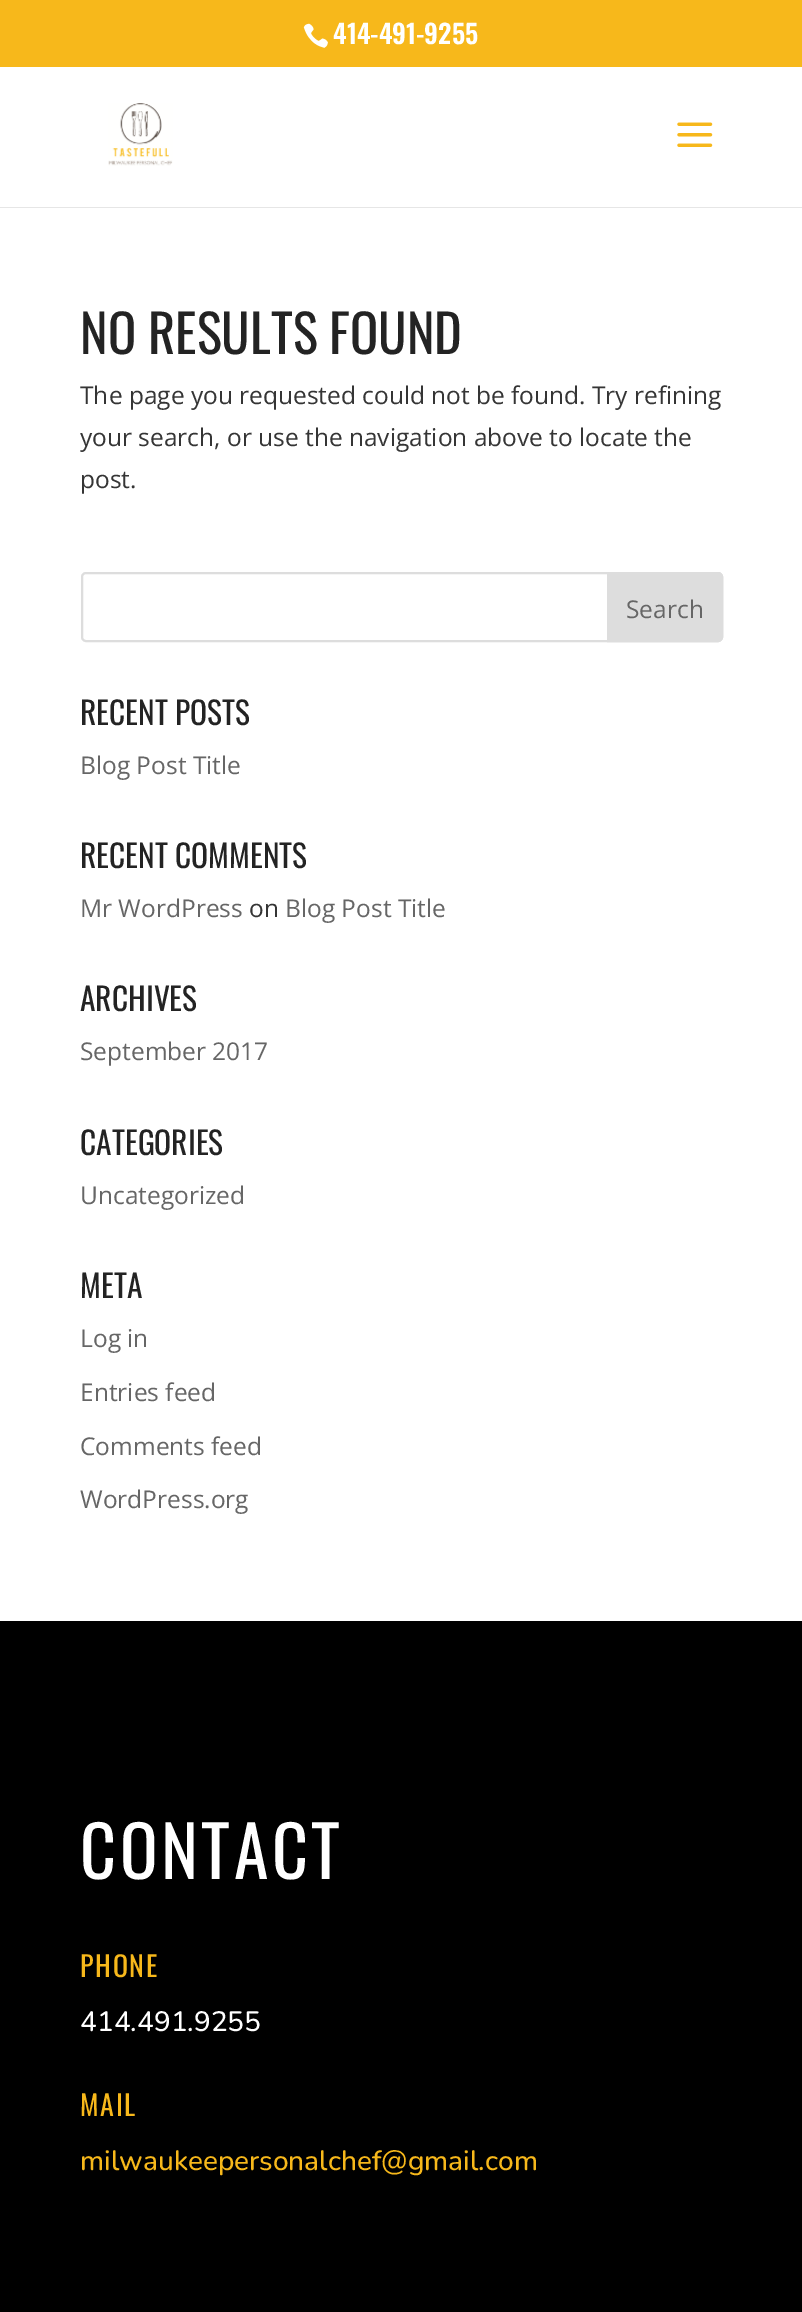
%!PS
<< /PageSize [802 2312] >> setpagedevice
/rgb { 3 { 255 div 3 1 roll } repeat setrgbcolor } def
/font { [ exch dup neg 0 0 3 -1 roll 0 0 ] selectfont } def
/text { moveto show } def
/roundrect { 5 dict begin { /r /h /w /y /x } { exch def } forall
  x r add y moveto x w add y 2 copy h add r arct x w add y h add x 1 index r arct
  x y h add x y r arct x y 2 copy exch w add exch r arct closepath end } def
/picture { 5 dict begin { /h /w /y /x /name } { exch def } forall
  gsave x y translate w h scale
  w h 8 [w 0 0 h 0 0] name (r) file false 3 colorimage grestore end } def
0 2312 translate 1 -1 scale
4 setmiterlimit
255 255 255 rgb
0 0 802 2312 rectfill
247 184 27 rgb
0 0 802 67 rectfill
(img_01.rgb) 303 23 25 25 picture
230 230 230 rgb
0 207 802 1 rectfill
(img_02.rgb) 108 103 65 63 picture
(img_03.rgb) 677 122 36 25 picture
221 221 221 rgb
2 setlinewidth
82 573 640 68 4 roundrect stroke
608 573 moveto 110 0 rlineto 2 0 4 2 4 4 rcurveto 0 60 rlineto 0 2 -2 4 -4 4 rcurveto -110 0 rlineto closepath gsave fill grestore
stroke
0 0 0 rgb
0 1621 802 691 rectfill
/Oswald-SemiBold 26.25 font
255 255 255 rgb
(414-491-9255) 333 44 text
/Oswald-Regular 52.5 font
35 35 35 rgb
(NO RESULTS FOUND) 80 354 text
/OpenSans-Regular 24.5 font
53 53 53 rgb
(The page you requested could not be found. Try refining) 80 404 text
(your search, or use the navigation above to locate the) 80 446 text
(post.) 80 488 text
102 102 102 rgb
(Search) 626 618 text
/Oswald-Regular 31.5 font
35 35 35 rgb
(RECENT POSTS) 80 725 text
/OpenSans-Regular 24.5 font
102 102 102 rgb
(Blog Post Title) 80 774 text
/Oswald-Regular 31.5 font
35 35 35 rgb
(RECENT COMMENTS) 80 868 text
/OpenSans-Regular 24.5 font
102 102 102 rgb
(Mr WordPress) 80 917 text
53 53 53 rgb
(on) 249 917 text
102 102 102 rgb
(Blog Post Title) 285 917 text
/Oswald-Regular 31.5 font
35 35 35 rgb
(ARCHIVES) 80 1011 text
/OpenSans-Regular 24.5 font
102 102 102 rgb
(September 2017) 80 1060 text
/Oswald-Regular 31.5 font
35 35 35 rgb
(CATEGORIES) 80 1155 text
/OpenSans-Regular 24.5 font
102 102 102 rgb
(Uncategorized) 80 1204 text
/Oswald-Regular 31.5 font
35 35 35 rgb
(META) 80 1298 text
/OpenSans-Regular 24.5 font
102 102 102 rgb
(Log in) 80 1347 text
(Entries feed) 80 1401 text
(Comments feed) 80 1455 text
(WordPress.org) 80 1508 text
/Oswald-Regular 70 font
255 255 255 rgb
80 1879 moveto 3.5 0 (CONTACT) ashow
/Oswald-Regular 28 font
247 184 27 rgb
80 1977 moveto 1.75 0 (PHONE) ashow
/Nunito-ExtraLight 28 font
255 255 255 rgb
(414.491.9255) 80 2031 text
/Oswald-Regular 28 font
247 184 27 rgb
80 2116 moveto 1.75 0 (MAIL) ashow
/Nunito-ExtraLight 28 font
(milwaukeepersonalchef@gmail.com) 80 2170 text
showpage
